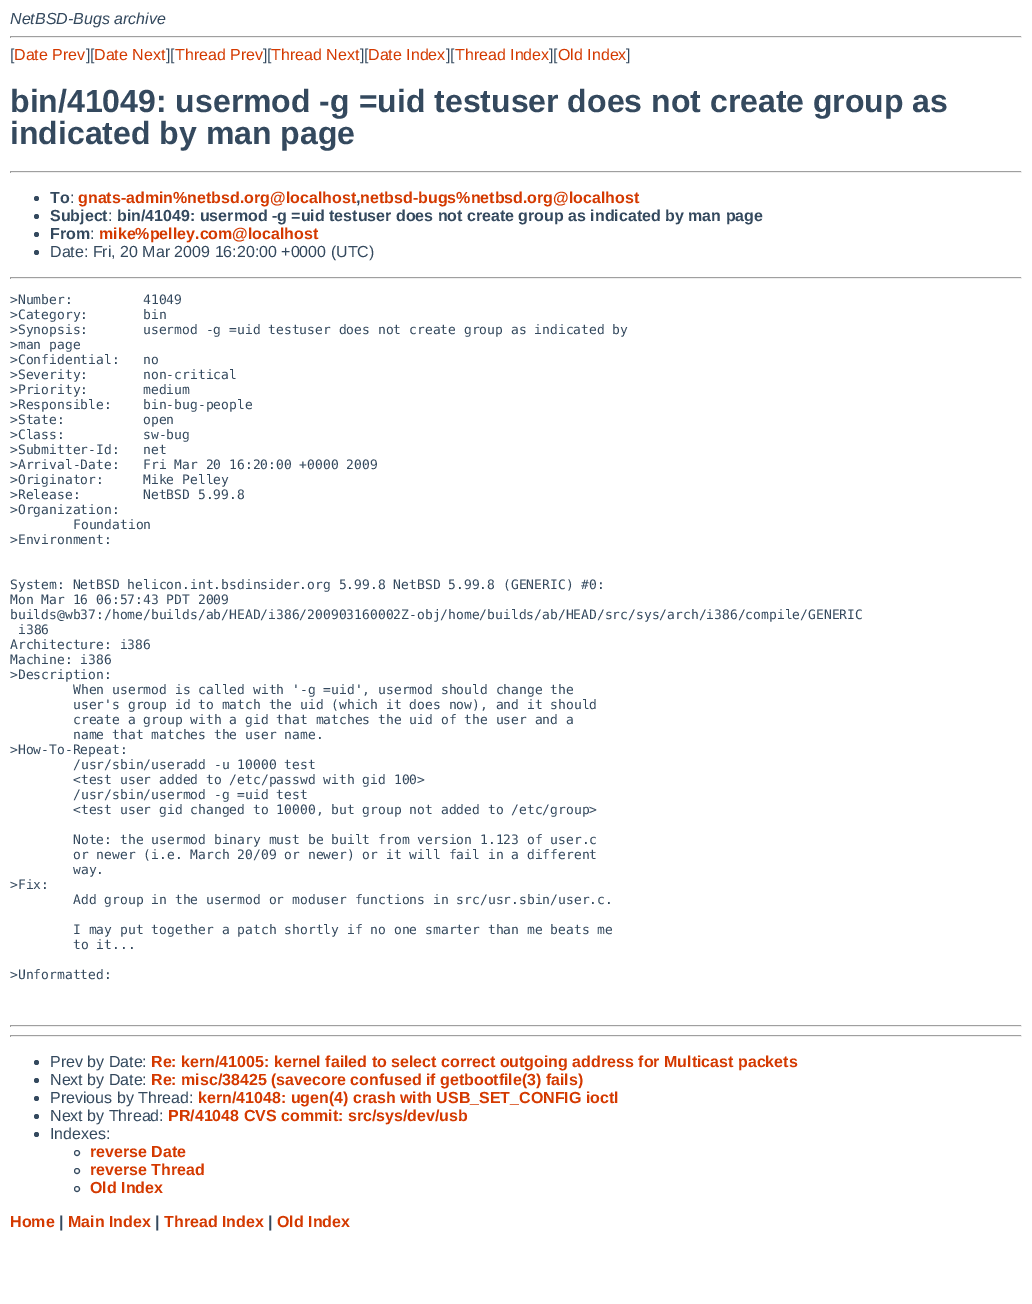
%!PS
<< /PageSize [1032 1304] >> setpagedevice
/rgb { 3 { 255 div 3 1 roll } repeat setrgbcolor } def
/font { [ exch dup neg 0 0 3 -1 roll 0 0 ] selectfont } def
/text { moveto show } def
/circle { newpath 0 360 arc closepath } def
0 1304 translate 1 -1 scale
4 setmiterlimit
255 255 255 rgb
0 0 1032 1304 rectfill
159 159 159 rgb
10 36 1012 1 rectfill
238 238 238 rgb
1021 36 1 2 rectfill
10 37 1012 1 rectfill
159 159 159 rgb
10 36 1 2 rectfill
10 171 1012 1 rectfill
238 238 238 rgb
1021 171 1 2 rectfill
10 172 1012 1 rectfill
159 159 159 rgb
10 171 1 2 rectfill
52 73 94 rgb
36.5 198.5 2.5 circle fill
36.5 216.5 2.5 circle fill
36.5 234.5 2.5 circle fill
36.5 252.5 2.5 circle fill
159 159 159 rgb
10 277 1012 1 rectfill
238 238 238 rgb
1021 277 1 2 rectfill
10 278 1012 1 rectfill
159 159 159 rgb
10 277 1 2 rectfill
10 1025 1012 1 rectfill
238 238 238 rgb
1021 1025 1 2 rectfill
10 1026 1012 1 rectfill
159 159 159 rgb
10 1025 1 2 rectfill
10 1035 1012 1 rectfill
238 238 238 rgb
1021 1035 1 2 rectfill
10 1036 1012 1 rectfill
159 159 159 rgb
10 1035 1 2 rectfill
52 73 94 rgb
36.5 1062.5 2.5 circle fill
36.5 1080.5 2.5 circle fill
36.5 1098.5 2.5 circle fill
36.5 1116.5 2.5 circle fill
36.5 1134.5 2.5 circle fill
77 1153 2.5 circle stroke
77 1171 2.5 circle stroke
77 1189 2.5 circle stroke
/LiberationSans-Italic 16 font
(NetBSD-Bugs archive) 10 24 text
/LiberationSans-Regular 16 font
([) 10 60 text
212 57 0 rgb
(Date Prev) 14 60 text
52 73 94 rgb
(][) 86 60 text
212 57 0 rgb
(Date Next) 94 60 text
52 73 94 rgb
(][) 166 60 text
212 57 0 rgb
(Thread Prev) 175 60 text
52 73 94 rgb
(][) 263 60 text
212 57 0 rgb
(Thread Next) 271 60 text
52 73 94 rgb
(][) 360 60 text
212 57 0 rgb
(Date Index) 368 60 text
52 73 94 rgb
(][) 446 60 text
212 57 0 rgb
(Thread Index) 455 60 text
52 73 94 rgb
(][) 549 60 text
212 57 0 rgb
(Old Index) 558 60 text
52 73 94 rgb
(]) 626 60 text
/LiberationSans-Bold 32 font
(bin/41049: usermod -g =uid testuser does not create group as) 10 112 text
(indicated by man page) 10 144 text
/LiberationSans-Bold 16 font
(To) 50 203 text
/LiberationSans-Regular 16 font
(:) 70 203 text
/LiberationSans-Bold 16 font
212 57 0 rgb
(gnats-admin%netbsd.org@localhost netbsd-bugs%netbsd.org@localhost) 78 203 text
52 73 94 rgb
(,) 356 203 text
(Subject) 50 221 text
/LiberationSans-Regular 16 font
(:) 108 221 text
/LiberationSans-Bold 16 font
(bin/41049: usermod -g =uid testuser does not create group as indicated by man page) 117 221 text
(From) 50 239 text
/LiberationSans-Regular 16 font
(:) 90 239 text
/LiberationSans-Bold 16 font
212 57 0 rgb
(mike%pelley.com@localhost) 99 239 text
/LiberationSans-Regular 16 font
52 73 94 rgb
(Date: Fri, 20 Mar 2009 16:20:00 +0000 \(UTC\)) 50 257 text
/DejaVuSansMono-Regular 13 font
(>Number:         41049) 10 304 text
(>Category:       bin) 10 319 text
(>Synopsis:       usermod -g =uid testuser does not create group as indicated by) 10 334 text
(>man page) 10 349 text
(>Confidential:   no) 10 364 text
(>Severity:       non-critical) 10 379 text
(>Priority:       medium) 10 394 text
(>Responsible:    bin-bug-people) 10 409 text
(>State:          open) 10 424 text
(>Class:          sw-bug) 10 439 text
(>Submitter-Id:   net) 10 454 text
(>Arrival-Date:   Fri Mar 20 16:20:00 +0000 2009) 10 469 text
(>Originator:     Mike Pelley) 10 484 text
(>Release:        NetBSD 5.99.8) 10 499 text
(>Organization:) 10 514 text
(Foundation) 73 529 text
(>Environment:) 10 544 text
(System: NetBSD helicon.int.bsdinsider.org 5.99.8 NetBSD 5.99.8 \(GENERIC\) #0:) 10 589 text
(Mon Mar 16 06:57:43 PDT 2009) 10 604 text
(builds@wb37:/home/builds/ab/HEAD/i386/200903160002Z-obj/home/builds/ab/HEAD/src/sys/arch/i386/compile/GENERIC) 10 619 text
(i386) 18 634 text
(Architecture: i386) 10 649 text
(Machine: i386) 10 664 text
(>Description:) 10 679 text
(When usermod is called with '-g =uid', usermod should change the) 73 694 text
(user's group id to match the uid \(which it does now\), and it should) 73 709 text
(create a group with a gid that matches the uid of the user and a) 73 724 text
(name that matches the user name.) 73 739 text
(>How-To-Repeat:) 10 754 text
(/usr/sbin/useradd -u 10000 test) 73 769 text
(<test user added to /etc/passwd with gid 100>) 73 784 text
(/usr/sbin/usermod -g =uid test) 73 799 text
(<test user gid changed to 10000, but group not added to /etc/group>) 73 814 text
(Note: the usermod binary must be built from version 1.123 of user.c) 73 844 text
(or newer \(i.e. March 20/09 or newer\) or it will fail in a different) 73 859 text
(way.) 73 874 text
(>Fix:) 10 889 text
(Add group in the usermod or moduser functions in src/usr.sbin/user.c.) 73 904 text
(I may put together a patch shortly if no one smarter than me beats me) 73 934 text
(to it...) 73 949 text
(>Unformatted:) 10 979 text
/LiberationSans-Regular 16 font
(Prev by Date:) 50 1067 text
/LiberationSans-Bold 16 font
212 57 0 rgb
(Re: kern/41005: kernel failed to select correct outgoing address for Multicast packets) 151 1067 text
/LiberationSans-Regular 16 font
52 73 94 rgb
(Next by Date:) 50 1085 text
/LiberationSans-Bold 16 font
212 57 0 rgb
(Re: misc/38425 \(savecore confused if getbootfile\(3\) fails\)) 151 1085 text
/LiberationSans-Regular 16 font
52 73 94 rgb
(Previous by Thread:) 50 1103 text
/LiberationSans-Bold 16 font
212 57 0 rgb
(kern/41048: ugen\(4\) crash with USB_SET_CONFIG ioctl) 198 1103 text
/LiberationSans-Regular 16 font
52 73 94 rgb
(Next by Thread:) 50 1121 text
/LiberationSans-Bold 16 font
212 57 0 rgb
(PR/41048 CVS commit: src/sys/dev/usb) 168 1121 text
/LiberationSans-Regular 16 font
52 73 94 rgb
(Indexes:) 50 1139 text
/LiberationSans-Bold 16 font
212 57 0 rgb
(reverse Date) 90 1157 text
(reverse Thread) 90 1175 text
(Old Index) 90 1193 text
(Home) 10 1227 text
52 73 94 rgb
(|) 59 1227 text
212 57 0 rgb
(Main Index) 68 1227 text
52 73 94 rgb
(|) 155 1227 text
212 57 0 rgb
(Thread Index) 164 1227 text
52 73 94 rgb
(|) 268 1227 text
212 57 0 rgb
(Old Index) 277 1227 text
showpage
